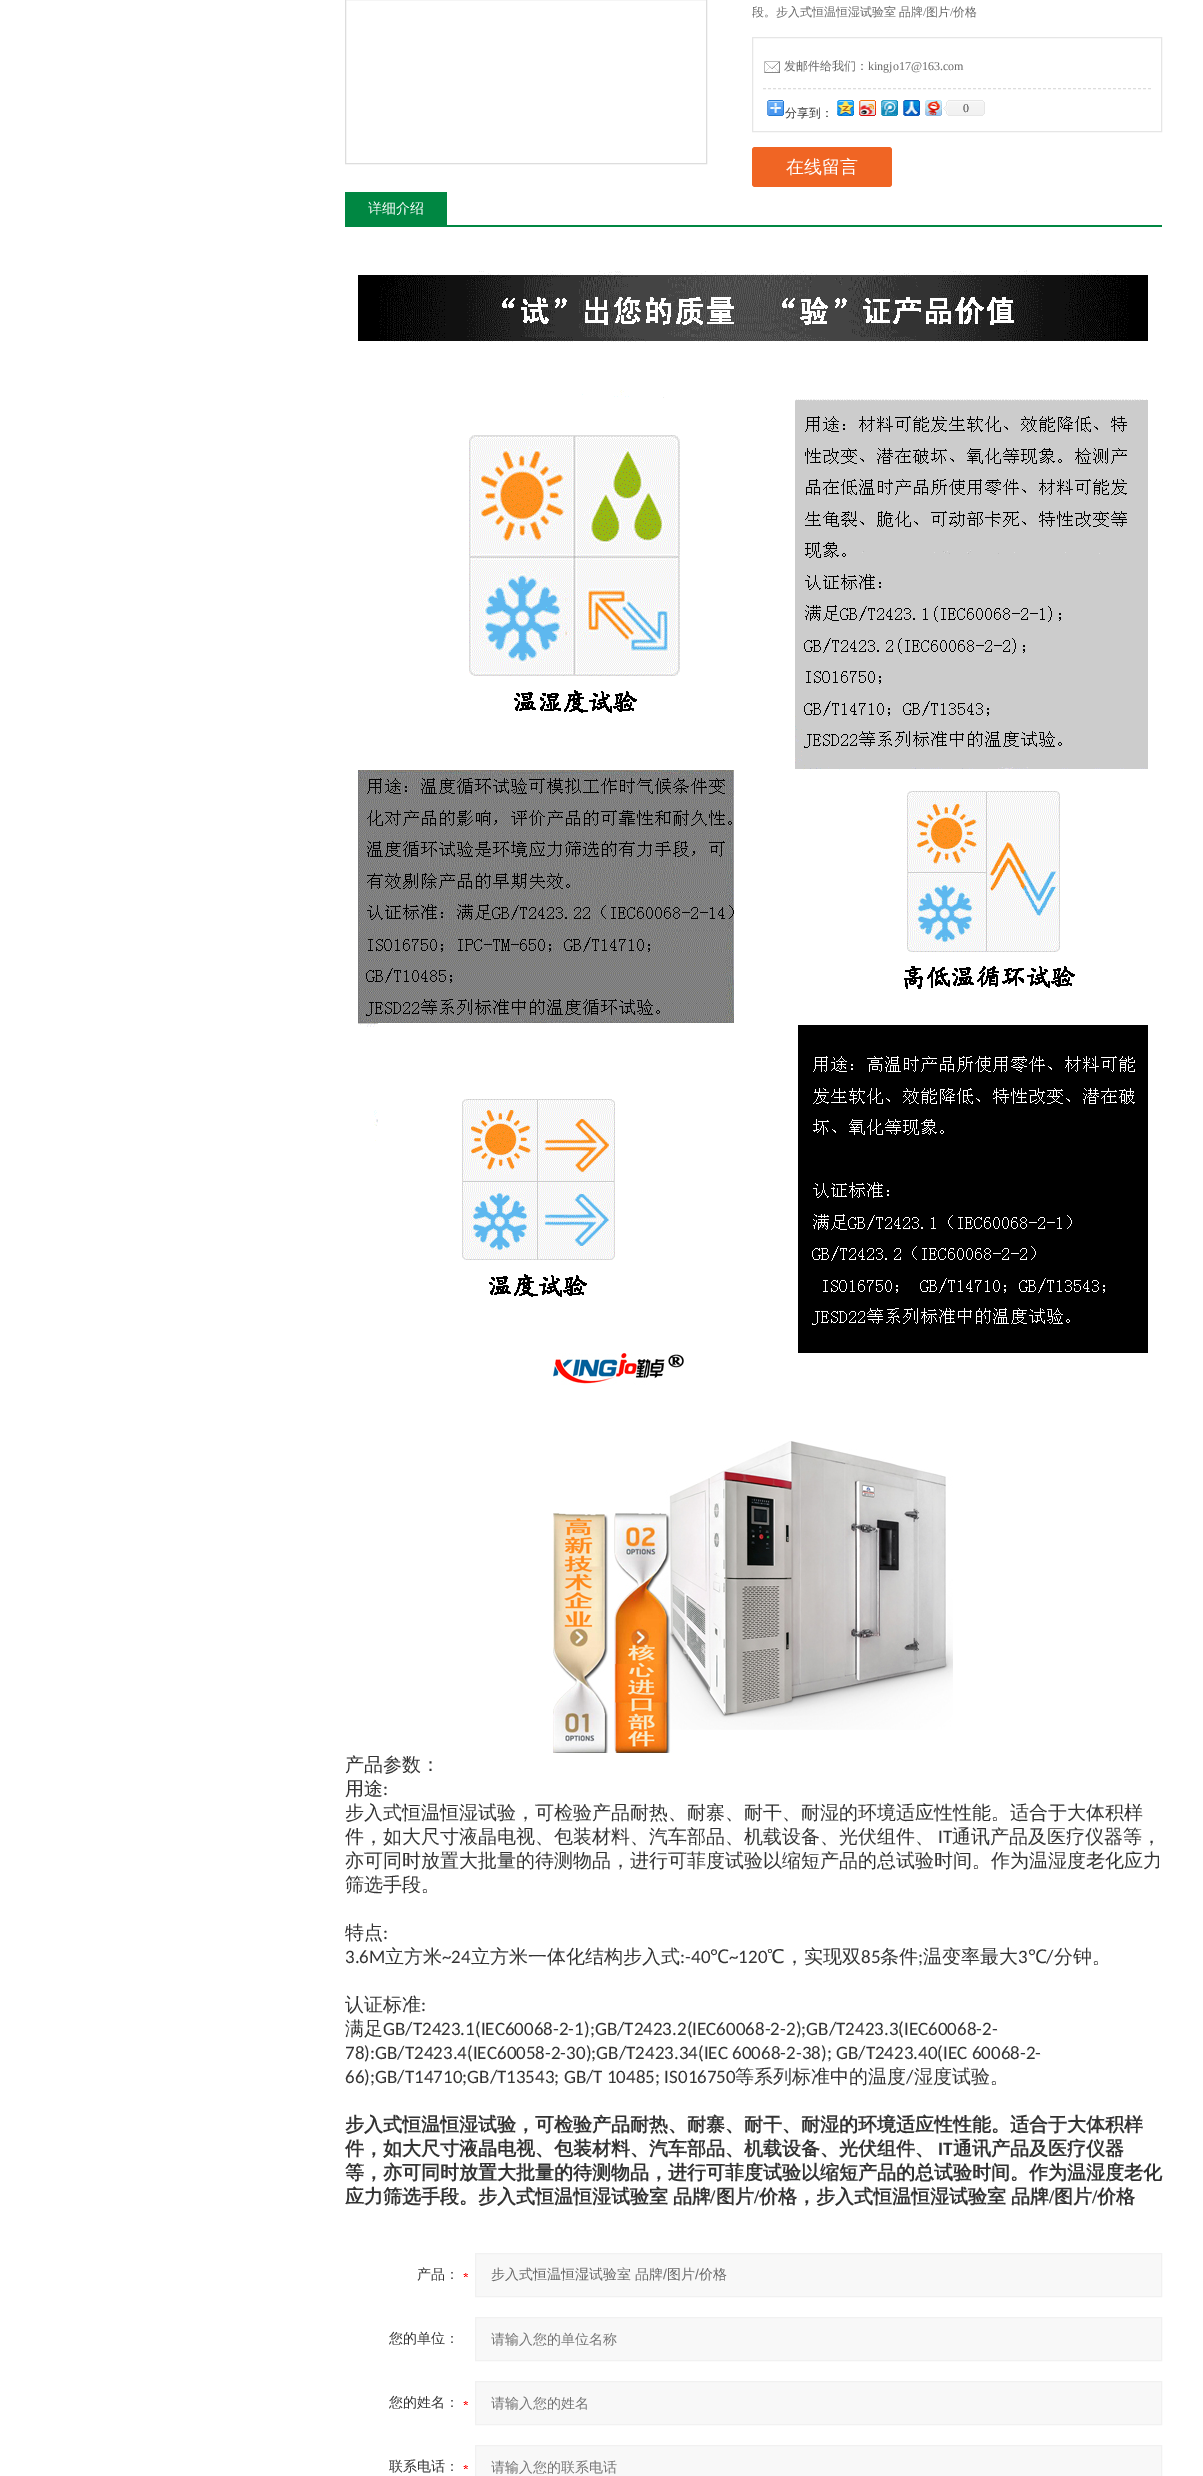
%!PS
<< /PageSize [1203 2476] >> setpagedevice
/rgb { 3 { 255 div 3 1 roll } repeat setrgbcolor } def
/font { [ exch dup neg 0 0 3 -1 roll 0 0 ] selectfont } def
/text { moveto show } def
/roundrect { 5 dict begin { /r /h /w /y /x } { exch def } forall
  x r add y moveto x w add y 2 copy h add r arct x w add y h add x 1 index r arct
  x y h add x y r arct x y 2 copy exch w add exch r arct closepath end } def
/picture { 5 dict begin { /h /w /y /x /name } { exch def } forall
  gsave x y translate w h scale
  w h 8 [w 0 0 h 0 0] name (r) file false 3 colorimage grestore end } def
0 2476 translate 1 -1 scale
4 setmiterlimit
255 255 255 rgb
0 0 1203 2476 rectfill
221 221 221 rgb
345.5 -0.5 361 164 rectstroke
230 230 230 rgb
752.5 37.5 409 94 rectstroke
(img_01.rgb) 764 61 16 12 picture
221 221 221 rgb
[3 2] 0 setdash
763 88.5 moveto 388 0 rlineto stroke
(img_02.rgb) 767 100 17 16 picture
(img_03.rgb) 837 100 17 16 picture
(img_04.rgb) 859 100 17 16 picture
(img_05.rgb) 881 100 17 16 picture
(img_06.rgb) 903 100 17 16 picture
(img_07.rgb) 925 100 17 16 picture
(img_08.rgb) 943 100 42 16 picture
240 101 36 rgb
752 147 140 40 3 roundrect fill
0 135 66 rgb
345 225 817 2 rectfill
345 192 102 33 rectfill
(img_09.rgb) 358 270 790 1083 picture
(img_10.rgb) 553 1353 400 400 picture
(img_11.rgb) 463 2273 5 4 picture
248 248 248 rgb
475.5 2253.5 moveto 686 0 rlineto 0 43 rlineto -686 0 rlineto closepath gsave fill grestore
241 241 241 rgb
[] 0 setdash
stroke
248 248 248 rgb
475.5 2317.5 moveto 686 0 rlineto 0 43 rlineto -686 0 rlineto closepath gsave fill grestore
241 241 241 rgb
stroke
(img_11.rgb) 463 2401 5 4 picture
248 248 248 rgb
475.5 2381.5 moveto 686 0 rlineto 0 43 rlineto -686 0 rlineto closepath gsave fill grestore
241 241 241 rgb
stroke
(img_11.rgb) 463 2465 5 4 picture
248 248 248 rgb
475.5 2445.5 moveto 686 0 rlineto 0 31 rlineto -686 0 rlineto closepath gsave fill grestore
241 241 241 rgb
stroke
/WenQuanYiZenHei-Medium 12 font
104 104 104 rgb
752 16 moveto -1 0 32 (段。步入式恒温恒湿试验室 品牌) widthshow
/LiberationSerif-Regular 12 font
(/) 923 16 text
/WenQuanYiZenHei-Medium 12 font
(图片) 926 16 text
/LiberationSerif-Regular 12 font
(/) 950 16 text
/WenQuanYiZenHei-Medium 12 font
(价格) 953 16 text
(发邮件给我们：) 784 70 text
/LiberationSerif-Regular 12 font
(kingjo17@163.com) 868 70 text
/WenQuanYiZenHei-Medium 12 font
51 51 51 rgb
(分享到：) 785 117 text
/LiberationSerif-Regular 12 font
69 69 69 rgb
(0) 963 112 text
/WenQuanYiZenHei-Medium 18 font
255 255 255 rgb
(在线留言) 786 173 text
/WenQuanYiZenHei-Medium 14 font
(详细介绍) 368 213 text
/WenQuanYiZenHei-Medium 19 font
51 51 51 rgb
(产品参数：) 345 1771 text
(用途) 345 1795 text
/Carlito-Regular 19 font
(:) 383 1795 text
/WenQuanYiZenHei-Medium 19 font
(步入式恒温恒湿试验，可检验产品耐热、耐寨、耐干、耐湿的环境适应性性能。适合于大体积样) 345 1819 text
(件，如大尺寸液晶电视、包装材料、汽车部品、机载设备、光伏组件、) 345 1843 text
/Carlito-Regular 19 font
(IT) 938 1843 text
/WenQuanYiZenHei-Medium 19 font
(通讯产品及医疗仪器等，) 952 1843 text
(亦可同时放置大批量的待测物品，进行可菲度试验以缩短产品的总试验时间。作为温湿度老化应力) 345 1867 text
(筛选手段。) 345 1891 text
(特点) 345 1939 text
/Carlito-Regular 19 font
(:) 383 1939 text
(3.6M) 345 1963 text
/WenQuanYiZenHei-Medium 19 font
(立方米) 385 1963 text
/Carlito-Regular 19 font
(~24) 442 1963 text
/WenQuanYiZenHei-Medium 19 font
(立方米一体化结构步入式) 471 1963 text
/Carlito-Regular 19 font
(:-40) 680 1963 text
/NotoSans-Regular 19 font
(℃) 710 1963 text
/Carlito-Regular 19 font
(~120) 729 1963 text
/WenQuanYiZenHei-Medium 19 font
(℃，实现双) 767 1963 text
/Carlito-Regular 19 font
(85) 861 1963 text
/WenQuanYiZenHei-Medium 19 font
(条件) 880 1963 text
/Carlito-Regular 19 font
(;) 918 1963 text
/WenQuanYiZenHei-Medium 19 font
(温变率最大) 923 1963 text
/Carlito-Regular 19 font
(3) 1018 1963 text
/NotoSans-Regular 19 font
(℃) 1028 1963 text
/Carlito-Regular 19 font
(/) 1046 1963 text
/WenQuanYiZenHei-Medium 19 font
(分钟。) 1054 1963 text
(认证标准) 345 2011 text
/Carlito-Regular 19 font
(:) 421 2011 text
/WenQuanYiZenHei-Medium 19 font
(满足) 345 2035 text
/Carlito-Regular 19 font
(GB/T2423.1\(IEC60068-2-1\);GB/T2423.2\(IEC60068-2-2\);GB/T2423.3\(IEC60068-2-) 383 2035 text
(78\):GB/T2423.4\(IEC60058-2-30\);GB/T2423.34\(IEC 60068-2-38\); GB/T2423.40\(IEC 60068-2-) 345 2059 text
(66\);GB/T14710;GB/T13543; GB/T 10485; IS016750) 345 2083 text
/WenQuanYiZenHei-Medium 19 font
(等系列标准中的温度) 735 2083 text
/Carlito-Regular 19 font
(/) 906 2083 text
/WenQuanYiZenHei-Medium 19 font
(湿度试验。) 914 2083 text
/WenQuanYiZenHei-Bold 19 font
(步入式恒温恒湿试验，可检验产品耐热、耐寨、耐干、耐湿的环境适应性性能。适合于大体积样) 345 2131 text
(件，如大尺寸液晶电视、包装材料、汽车部品、机载设备、光伏组件、) 345 2155 text
/Carlito-Bold 19 font
(IT) 938 2155 text
/WenQuanYiZenHei-Bold 19 font
(通讯产品及医疗仪器) 953 2155 text
(等，亦可同时放置大批量的待测物品，进行可菲度试验以缩短产品的总试验时间。作为温湿度老化) 345 2179 text
(应力筛选手段。) 345 2203 text
478 2203 moveto -1 0 32 (步入式恒温恒湿试验室 品牌) widthshow
/LiberationSerif-Bold 19 font
(/) 710 2203 text
/WenQuanYiZenHei-Bold 19 font
(图片) 716 2203 text
/LiberationSerif-Bold 19 font
(/) 754 2203 text
/WenQuanYiZenHei-Bold 19 font
(价格，) 759 2203 text
816 2203 moveto -1 0 32 (步入式恒温恒湿试验室 品牌) widthshow
/LiberationSerif-Bold 19 font
(/) 1049 2203 text
/WenQuanYiZenHei-Bold 19 font
(图片) 1054 2203 text
/LiberationSerif-Bold 19 font
(/) 1092 2203 text
/WenQuanYiZenHei-Bold 19 font
(价格) 1097 2203 text
/WenQuanYiZenHei-Medium 14 font
(产品：) 417 2279 text
104 104 104 rgb
(步入式恒温恒湿试验室 品牌) 491 2279 text
/LiberationSans-Regular 14 font
(/) 663 2279 text
/WenQuanYiZenHei-Medium 14 font
(图片) 667 2279 text
/LiberationSans-Regular 14 font
(/) 695 2279 text
/WenQuanYiZenHei-Medium 14 font
(价格) 699 2279 text
51 51 51 rgb
(您的单位：) 389 2343 text
117 117 117 rgb
(请输入您的单位名称) 491 2344 text
51 51 51 rgb
(您的姓名：) 389 2407 text
117 117 117 rgb
(请输入您的姓名) 491 2408 text
51 51 51 rgb
(联系电话：) 389 2471 text
117 117 117 rgb
(请输入您的联系电话) 491 2472 text
showpage
